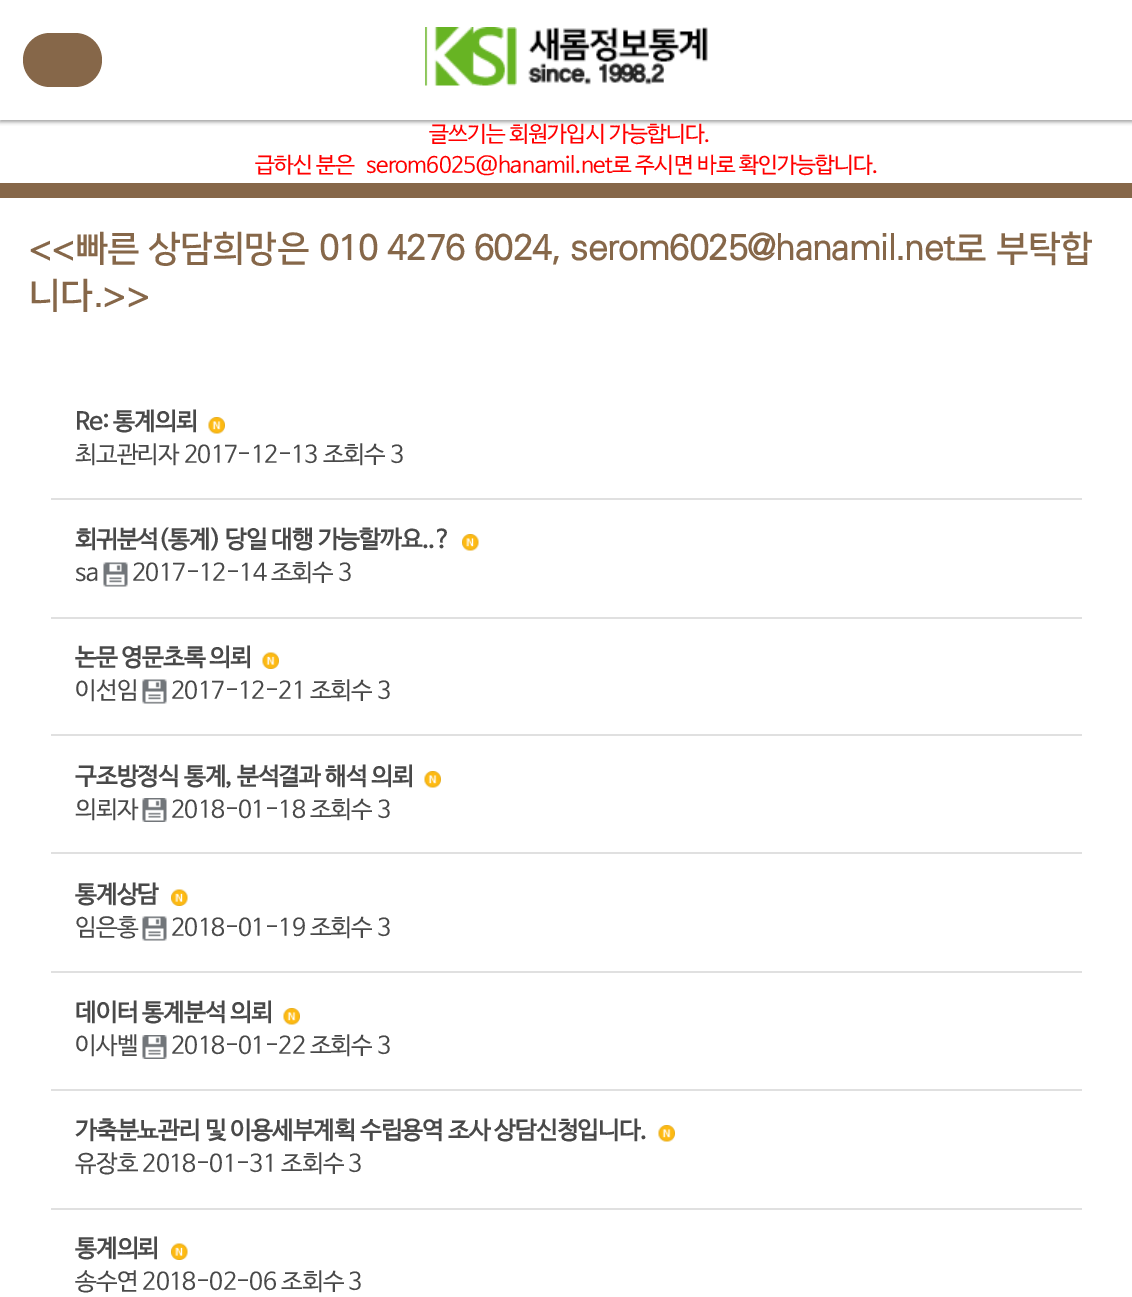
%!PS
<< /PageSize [1132 1297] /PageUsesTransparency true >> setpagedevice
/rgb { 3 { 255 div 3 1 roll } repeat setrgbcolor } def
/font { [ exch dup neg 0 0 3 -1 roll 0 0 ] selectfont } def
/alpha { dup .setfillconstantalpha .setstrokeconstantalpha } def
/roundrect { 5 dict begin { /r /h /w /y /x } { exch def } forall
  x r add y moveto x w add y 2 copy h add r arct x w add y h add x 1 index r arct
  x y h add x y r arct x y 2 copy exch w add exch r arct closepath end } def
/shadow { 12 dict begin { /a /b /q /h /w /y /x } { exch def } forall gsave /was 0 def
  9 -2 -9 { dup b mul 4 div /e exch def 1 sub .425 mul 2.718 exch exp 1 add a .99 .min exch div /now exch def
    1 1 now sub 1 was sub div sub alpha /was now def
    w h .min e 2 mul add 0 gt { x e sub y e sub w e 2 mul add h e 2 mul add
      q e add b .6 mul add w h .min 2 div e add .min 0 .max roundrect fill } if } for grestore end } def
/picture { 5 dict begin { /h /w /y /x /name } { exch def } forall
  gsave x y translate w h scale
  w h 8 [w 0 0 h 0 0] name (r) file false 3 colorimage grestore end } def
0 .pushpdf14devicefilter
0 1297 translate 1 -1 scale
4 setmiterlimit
255 255 255 rgb
0 0 1132 1297 rectfill
gsave
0 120 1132 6 rectclip
158 158 158 rgb
0 2 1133 120 0 2 1 shadow
grestore
134 103 73 rgb
23 33 79 54 27 roundrect fill
(img_01.rgb) 425 27 283 59 picture
0 183 1132 15 rectfill
224 224 224 rgb
51 498 1031 2 rectfill
(img_02.rgb) 208 417 17 17 picture
51 617 1031 2 rectfill
(img_03.rgb) 462 534 17 17 picture
(img_04.rgb) 103 562 25 25 picture
51 734 1031 2 rectfill
(img_05.rgb) 262 652 17 17 picture
(img_04.rgb) 142 679 25 25 picture
51 852 1031 2 rectfill
(img_06.rgb) 424 771 17 17 picture
(img_07.rgb) 142 798 25 24 picture
51 971 1031 2 rectfill
(img_08.rgb) 171 889 17 17 picture
(img_04.rgb) 142 916 25 25 picture
51 1089 1031 2 rectfill
(img_02.rgb) 283 1008 17 17 picture
(img_07.rgb) 142 1035 25 24 picture
51 1208 1031 2 rectfill
(img_06.rgb) 658 1125 17 17 picture
(img_08.rgb) 171 1243 17 17 picture
/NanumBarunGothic-Regular 22 font
255 0 0 rgb
429 141 moveto -0.6 0 (글쓰기는 회원가입시 가능합니다.) ashow
255 172 moveto -0.6 0 (급하신 분은) ashow
366 172 moveto -0.6 0 (serom6025@hanamil.net로 주시면 바로 확인가능합니다.) ashow
/Univers-Bold 36 font
134 103 73 rgb
28 260 moveto -0.6 0 (<<) ashow
/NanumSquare-Bold 36 font
75 260 moveto -0.6 0 (빠른) ashow
148 260 moveto -0.6 0 (상담희망은) ashow
/Univers-Bold 36 font
319 260 moveto -0.6 0 (010 4276 6024, serom6025@hanamil.net) ashow
/NanumSquare-Bold 36 font
954 260 moveto -0.6 0 (로) ashow
996 260 moveto -0.6 0 (부탁합) ashow
28 307 moveto -0.6 0 (니다) ashow
/Univers-Bold 36 font
93 307 moveto -0.6 0 (.>>) ashow
/NanumBarunGothic-Bold 24 font
73 73 73 rgb
75 429 moveto -0.6 0 (Re: 통계의뢰) ashow
/NanumBarunGothic-Regular 24 font
75 462 moveto -0.6 0 (최고관리자 2017-12-13 조회수 3) ashow
/NanumBarunGothic-Bold 24 font
75 547 moveto -0.6 0 (회귀분석\(통계\) 당일 대행 가능할까요..?) ashow
/NanumBarunGothic-Regular 24 font
75 580 moveto -0.6 0 (sa) ashow
132 580 moveto -0.6 0 (2017-12-14 조회수 3) ashow
/NanumBarunGothic-Bold 24 font
75 665 moveto -0.6 0 (논문 영문초록 의뢰) ashow
/NanumBarunGothic-Regular 24 font
75 698 moveto -0.6 0 (이선임) ashow
171 698 moveto -0.6 0 (2017-12-21 조회수 3) ashow
/NanumBarunGothic-Bold 24 font
75 784 moveto -0.6 0 (구조방정식 통계, 분석결과 해석 의뢰) ashow
/NanumBarunGothic-Regular 24 font
75 817 moveto -0.6 0 (의뢰자) ashow
171 817 moveto -0.6 0 (2018-01-18 조회수 3) ashow
/NanumBarunGothic-Bold 24 font
75 902 moveto -0.6 0 (통계상담) ashow
/NanumBarunGothic-Regular 24 font
75 935 moveto -0.6 0 (임은홍) ashow
171 935 moveto -0.6 0 (2018-01-19 조회수 3) ashow
/NanumBarunGothic-Bold 24 font
75 1020 moveto -0.6 0 (데이터 통계분석 의뢰) ashow
/NanumBarunGothic-Regular 24 font
75 1053 moveto -0.6 0 (이사벨) ashow
171 1053 moveto -0.6 0 (2018-01-22 조회수 3) ashow
/NanumBarunGothic-Bold 24 font
75 1138 moveto -0.6 0 (가축분뇨관리 및 이용세부계획 수립용역 조사 상담신청입니다.) ashow
/NanumBarunGothic-Regular 24 font
75 1171 moveto -0.6 0 (유장호 2018-01-31 조회수 3) ashow
/NanumBarunGothic-Bold 24 font
75 1256 moveto -0.6 0 (통계의뢰) ashow
/NanumBarunGothic-Regular 24 font
75 1289 moveto -0.6 0 (송수연 2018-02-06 조회수 3) ashow
.poppdf14devicefilter showpage
